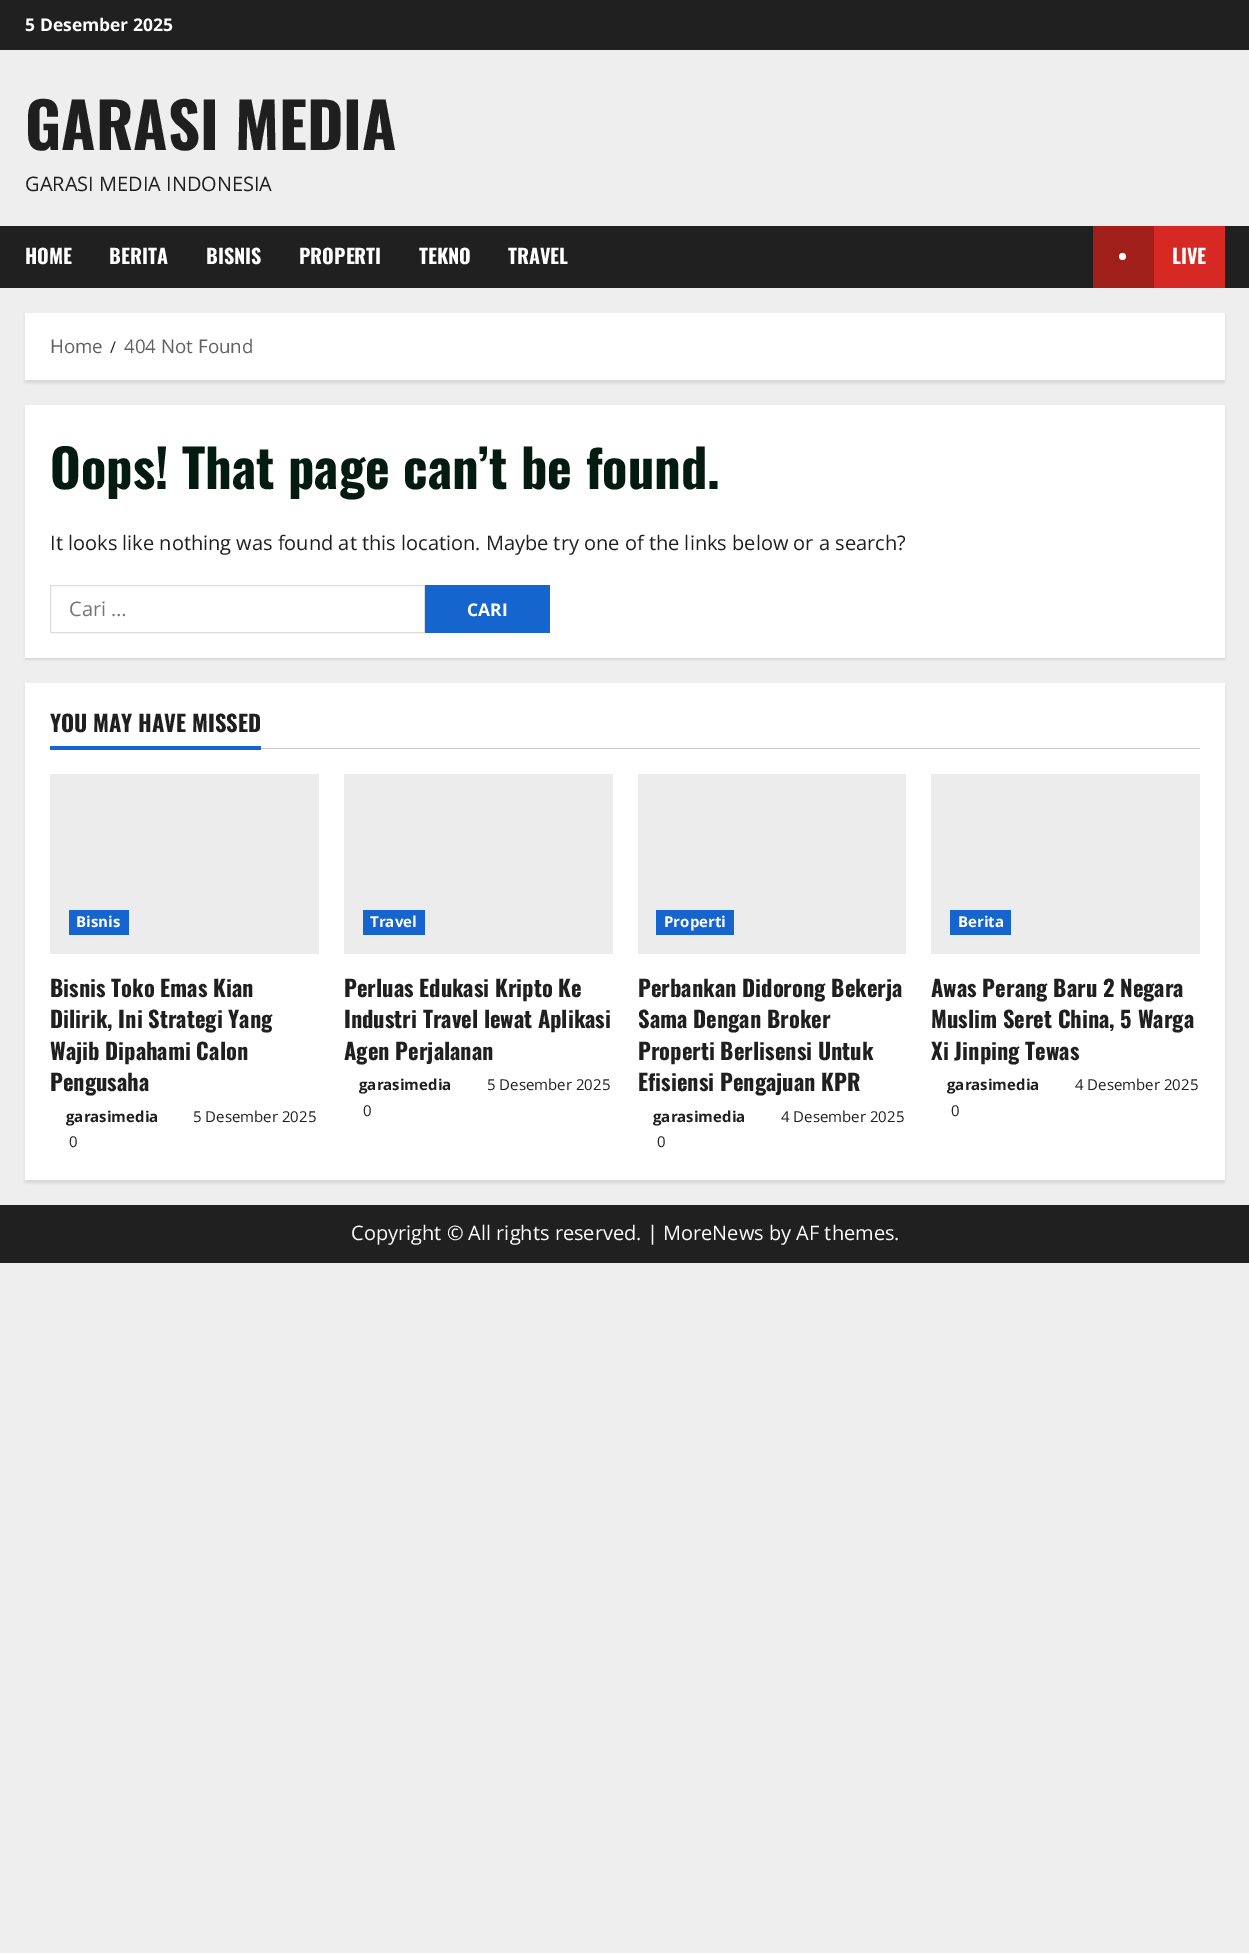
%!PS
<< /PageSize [1249 1953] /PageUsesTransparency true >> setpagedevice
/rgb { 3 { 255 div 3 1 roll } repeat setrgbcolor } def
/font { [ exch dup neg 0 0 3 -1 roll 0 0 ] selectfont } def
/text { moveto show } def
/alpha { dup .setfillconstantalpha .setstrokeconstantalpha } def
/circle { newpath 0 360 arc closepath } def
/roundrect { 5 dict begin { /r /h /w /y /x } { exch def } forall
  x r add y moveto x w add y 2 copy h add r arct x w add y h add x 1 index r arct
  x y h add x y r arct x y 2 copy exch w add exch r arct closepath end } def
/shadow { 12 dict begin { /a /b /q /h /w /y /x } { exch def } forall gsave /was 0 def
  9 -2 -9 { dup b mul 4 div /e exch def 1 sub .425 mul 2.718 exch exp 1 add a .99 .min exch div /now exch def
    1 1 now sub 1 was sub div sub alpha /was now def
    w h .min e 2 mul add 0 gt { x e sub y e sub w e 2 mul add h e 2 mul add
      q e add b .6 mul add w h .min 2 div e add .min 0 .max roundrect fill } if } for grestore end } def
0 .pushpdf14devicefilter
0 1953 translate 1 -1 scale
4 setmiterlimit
238 238 238 rgb
0 0 1249 1953 rectfill
32 32 32 rgb
0 0 1249 50 rectfill
0 226 1249 62 rectfill
215 41 36 rgb
1154 226 71 62 rectfill
161 31 27 rgb
1093 226 61 62 rectfill
255 255 255 rgb
1122.5 256.5 3.5 circle fill
0 0 0 rgb
25 315 1200 68 0 1 0.08 shadow
255 255 255 rgb
25 313 1200 67 rectfill
0 0 0 rgb
25 408 1200 252 0 1 0.08 shadow
255 255 255 rgb
25 405 1200 253 rectfill
220 220 220 rgb
50.5 585.5 374 47 rectstroke
22 101 207 rgb
425 585 125 48 rectfill
0 0 0 rgb
25 685 1200 498 0 1 0.08 shadow
255 255 255 rgb
25 683 1200 497 rectfill
204 204 204 rgb
261 748 939 1 rectfill
22 101 207 rgb
50 746 211 4 rectfill
236 236 236 rgb
50 774 269 180 rectfill
22 101 207 rgb
69 910 60 25 rectfill
236 236 236 rgb
344 774 269 180 rectfill
22 101 207 rgb
363 910 62 25 rectfill
236 236 236 rgb
638 774 268 180 rectfill
22 101 207 rgb
656 910 78 25 rectfill
236 236 236 rgb
931 774 269 180 rectfill
22 101 207 rgb
950 910 61 25 rectfill
32 32 32 rgb
0 1205 1249 58 rectfill
/OpenSans-Bold 17.5 font
255 255 255 rgb
(5 Desember 2025) 25 31 text
/Oswald-Bold 62.5 font
31 31 31 rgb
(GARASI MEDIA) 25 150 text
/OpenSans-Regular 20 font
(GARASI MEDIA INDONESIA) 25 191 text
/Oswald-Bold 20 font
255 255 255 rgb
(HOME) 25 264 text
(BERITA) 109 264 text
(BISNIS) 206 264 text
(PROPERTI) 299 264 text
(TEKNO) 419 264 text
(TRAVEL) 508 264 text
(LIVE) 1172 264 text
/OpenSans-Regular 18.75 font
98 98 98 rgb
(Home) 50 353 text
/OpenSans-Regular 16 font
31 31 31 rgb
(/) 110 353 text
/OpenSans-Regular 18.75 font
98 98 98 rgb
(404 Not Found) 124 353 text
/Oswald-Bold 52.5 font
3 27 17 rgb
(Oops! That page can’t be found.) 50 489 text
/OpenSans-Regular 20 font
31 31 31 rgb
(It looks like nothing was found at this location. Maybe try one of the links below or a search?) 50 550 text
117 117 117 rgb
(Cari …) 69 616 text
/OpenSans-Bold 17.5 font
255 255 255 rgb
(CARI) 467 616 text
/Oswald-Bold 22.5 font
31 31 31 rgb
(YOU MAY HAVE MISSED) 50 732 text
/OpenSans-Bold 15 font
255 255 255 rgb
(Bisnis) 76 927 text
/Oswald-Bold 22.5 font
31 31 31 rgb
(Bisnis Toko Emas Kian) 50 997 text
(Dilirik, Ini Strategi Yang) 50 1028 text
(Wajib Dipahami Calon) 50 1060 text
(Pengusaha) 50 1091 text
/OpenSans-Bold 15 font
(garasimedia) 66 1122 text
/OpenSans-Regular 15 font
(5 Desember 2025) 193 1122 text
(0) 69 1147 text
/OpenSans-Bold 15 font
255 255 255 rgb
(Travel) 370 927 text
/Oswald-Bold 22.5 font
31 31 31 rgb
(Perluas Edukasi Kripto Ke) 344 997 text
(Industri Travel lewat Aplikasi) 344 1028 text
(Agen Perjalanan) 344 1060 text
/OpenSans-Bold 15 font
(garasimedia) 359 1090 text
/OpenSans-Regular 15 font
(5 Desember 2025) 487 1090 text
(0) 363 1116 text
/OpenSans-Bold 15 font
255 255 255 rgb
(Properti) 664 927 text
/Oswald-Bold 22.5 font
31 31 31 rgb
(Perbankan Didorong Bekerja) 638 997 text
(Sama Dengan Broker) 638 1028 text
(Properti Berlisensi Untuk) 638 1060 text
(Efisiensi Pengajuan KPR) 638 1091 text
/OpenSans-Bold 15 font
(garasimedia) 653 1122 text
/OpenSans-Regular 15 font
(4 Desember 2025) 781 1122 text
(0) 657 1147 text
/OpenSans-Bold 15 font
255 255 255 rgb
(Berita) 958 927 text
/Oswald-Bold 22.5 font
31 31 31 rgb
(Awas Perang Baru 2 Negara) 931 997 text
(Muslim Seret China, 5 Warga) 931 1028 text
(Xi Jinping Tewas) 931 1060 text
/OpenSans-Bold 15 font
(garasimedia) 947 1090 text
/OpenSans-Regular 15 font
(4 Desember 2025) 1075 1090 text
(0) 951 1116 text
/OpenSans-Regular 20 font
255 255 255 rgb
(Copyright © All rights reserved. | MoreNews by AF themes.) 351 1240 text
.poppdf14devicefilter showpage
